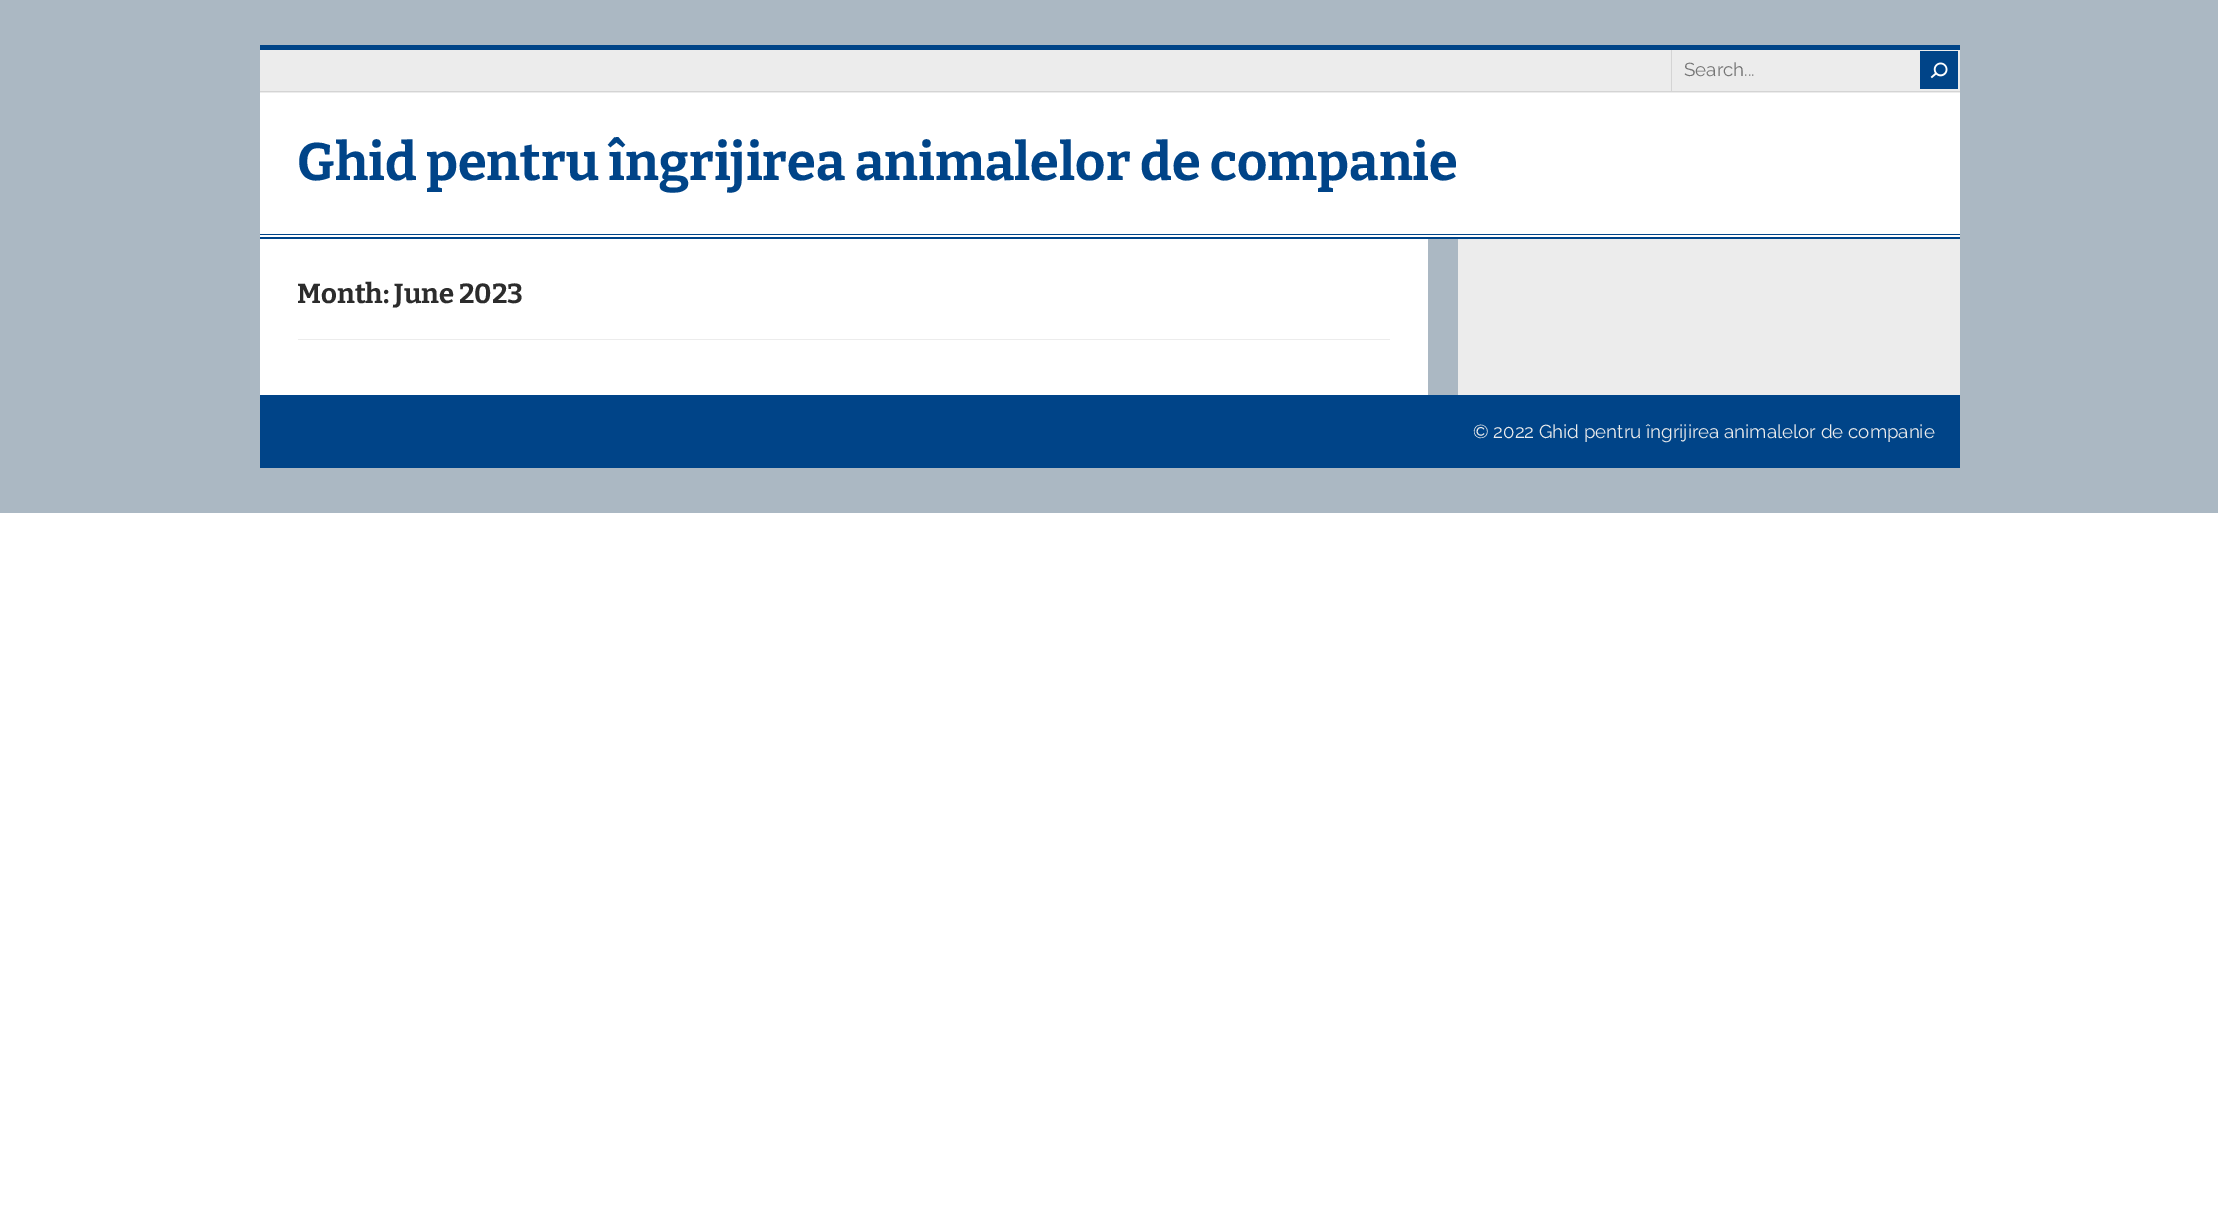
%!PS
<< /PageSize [2218 1222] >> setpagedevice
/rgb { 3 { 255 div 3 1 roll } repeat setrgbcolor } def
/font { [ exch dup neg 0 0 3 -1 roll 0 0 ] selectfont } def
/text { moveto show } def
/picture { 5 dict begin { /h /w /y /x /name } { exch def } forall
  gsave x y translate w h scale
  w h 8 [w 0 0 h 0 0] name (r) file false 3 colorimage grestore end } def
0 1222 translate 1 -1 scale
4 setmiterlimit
255 255 255 rgb
0 0 2218 1222 rectfill
171 184 195 rgb
0 0 2218 513 rectfill
255 255 255 rgb
260 93 1700 141 rectfill
0 68 136 rgb
260 45 1700 5 rectfill
236 236 236 rgb
260 50 1700 43 rectfill
212 212 212 rgb
260 91 1700 1 rectfill
1671 50 1 41 rectfill
0 68 136 rgb
1920 51 38 38 rectfill
(img_01.rgb) 1930 62 18 17 picture
260 234 1700 5 rectfill
255 255 255 rgb
260 235 1700 2 rectfill
260 239 1168 156 rectfill
236 236 236 rgb
298 339 1092 1 rectfill
1458 239 502 156 rectfill
0 68 136 rgb
260 395 1700 73 rectfill
/Raleway-Regular 18.75 font
117 117 117 rgb
(Search...) 1684 76 text
/Bitter-Bold 52.5 font
0 68 136 rgb
(Ghid pentru îngrijirea animalelor de companie) 297 180 text
/Bitter-Bold 27.5 font
44 44 44 rgb
(Month: June 2023) 297 303 text
/Raleway-Regular 18.75 font
236 236 236 rgb
(© 2022 Ghid pentru îngrijirea animalelor de companie) 1473 438 text
showpage
